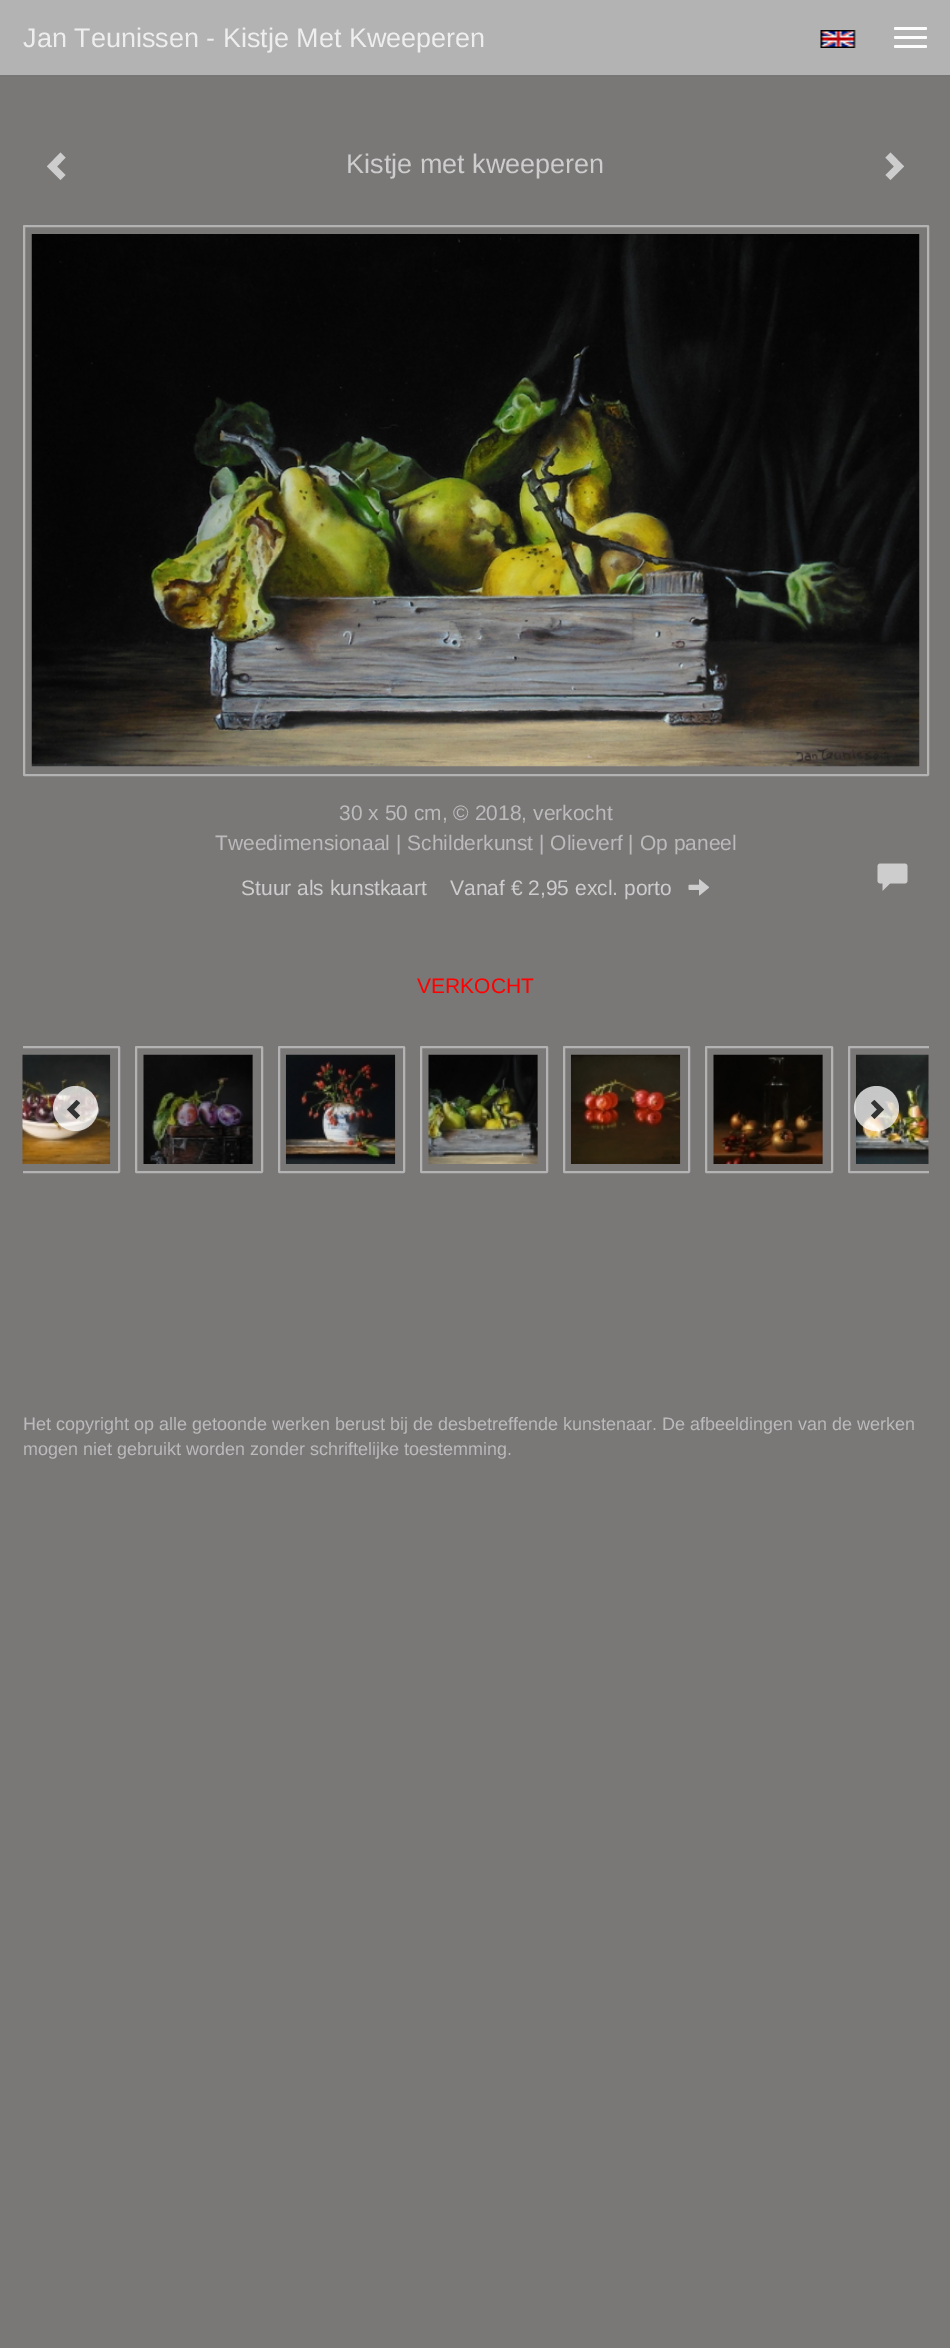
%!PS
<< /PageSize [950 2348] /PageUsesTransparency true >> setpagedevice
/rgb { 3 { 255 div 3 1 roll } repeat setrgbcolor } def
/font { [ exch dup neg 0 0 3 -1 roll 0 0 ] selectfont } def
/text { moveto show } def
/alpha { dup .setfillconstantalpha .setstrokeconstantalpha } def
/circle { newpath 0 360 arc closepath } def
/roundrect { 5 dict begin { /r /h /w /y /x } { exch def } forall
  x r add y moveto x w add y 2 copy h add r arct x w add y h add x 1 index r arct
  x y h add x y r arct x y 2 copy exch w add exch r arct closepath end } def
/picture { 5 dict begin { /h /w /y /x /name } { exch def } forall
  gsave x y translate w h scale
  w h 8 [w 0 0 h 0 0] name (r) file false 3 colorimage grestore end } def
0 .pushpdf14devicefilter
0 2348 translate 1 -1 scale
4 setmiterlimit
122 119 119 rgb
0 0 950 2348 rectfill
180 179 179 rgb
0 0 950 75 rectfill
118 118 118 rgb
0 75 950 2 rectfill
253 253 253 rgb
894 27 33 3 1.5 roundrect fill
894 36 33 3 1.5 roundrect fill
894 45 33 3 1.5 roundrect fill
(img_01.rgb) 820 30 36 18 picture
205 205 205 rgb
65.5 157.5 moveto -8.5 9 rlineto 8.5 8.5 rlineto -5 5 rlineto -13.5 -13.5 rlineto 13.5 -14 rlineto closepath fill
904 166.5 moveto -13.5 13.5 rlineto -5 -5 rlineto 8.5 -8.5 rlineto -8.5 -9 rlineto 5 -5 rlineto closepath fill
180 179 179 rgb
2 setlinewidth
24 226 904 549 0.5 roundrect stroke
(img_02.rgb) 31 234 889 533 picture
(img_03.rgb) 688 879 21 17 picture
(img_04.rgb) 877 863 31 28 picture
gsave
23 1038 906 143 rectclip
-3 1047 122 125 0.5 roundrect stroke
grestore
(img_05.rgb) 22 1054 89 110 picture
136 1047 126 125 0.5 roundrect stroke
(img_06.rgb) 143 1054 110 110 picture
279 1047 125 125 0.5 roundrect stroke
(img_07.rgb) 285 1054 111 110 picture
421 1047 126 125 0.5 roundrect stroke
(img_08.rgb) 428 1054 110 110 picture
564 1047 125 125 0.5 roundrect stroke
(img_09.rgb) 570 1054 111 110 picture
706 1047 126 125 0.5 roundrect stroke
(img_10.rgb) 713 1054 110 110 picture
gsave
23 1038 906 143 rectclip
849 1047 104 125 0.5 roundrect stroke
grestore
(img_11.rgb) 855 1054 74 110 picture
0.75 alpha
255 255 255 rgb
75.5 1108.5 22.5 circle fill
1 alpha
51 51 51 rgb
80 1103 moveto -6 6.5 rlineto 6 6 rlineto -3.5 3.5 rlineto -9.5 -9.5 rlineto 9.5 -9.5 rlineto closepath fill
0.75 alpha
255 255 255 rgb
876.5 1108.5 22.5 circle fill
1 alpha
51 51 51 rgb
884 1109.5 moveto -9.5 9.5 rlineto -3.5 -3.5 rlineto 6 -6 rlineto -6 -6.5 rlineto 3.5 -3 rlineto closepath fill
/LiberationSans-Regular 27 font
238 238 238 rgb
(Jan Teunissen - Kistje Met Kweeperen) 23 47 text
205 205 205 rgb
(Kistje met kweeperen) 346 173 text
/LiberationSans-Regular 21 font
187 187 187 rgb
(30 x 50 cm, © 2018, verkocht) 339 820 text
(Tweedimensionaal | Schilderkunst | Olieverf | Op paneel) 215 850 text
205 205 205 rgb
(Stuur als kunstkaart) 241 895 text
(Vanaf € 2,95 excl. porto) 450 895 text
255 0 0 rgb
(VERKOCHT) 417 993 text
/LiberationSans-Regular 18 font
187 187 187 rgb
(Het copyright op alle getoonde werken berust bij de desbetreffende kunstenaar. De afbeeldingen van de werken) 23 1430 text
(mogen niet gebruikt worden zonder schriftelijke toestemming.) 23 1455 text
.poppdf14devicefilter showpage
